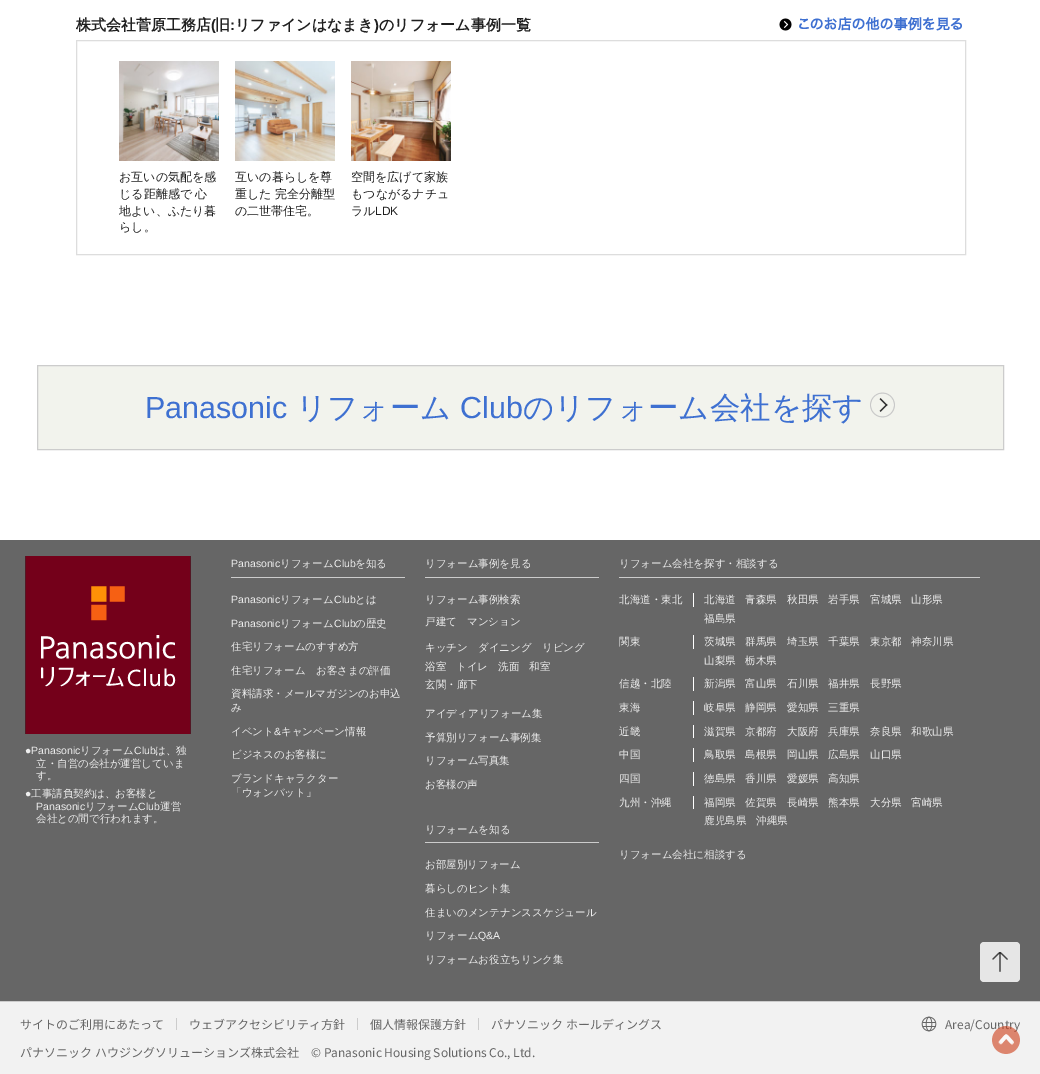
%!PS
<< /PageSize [1040 1074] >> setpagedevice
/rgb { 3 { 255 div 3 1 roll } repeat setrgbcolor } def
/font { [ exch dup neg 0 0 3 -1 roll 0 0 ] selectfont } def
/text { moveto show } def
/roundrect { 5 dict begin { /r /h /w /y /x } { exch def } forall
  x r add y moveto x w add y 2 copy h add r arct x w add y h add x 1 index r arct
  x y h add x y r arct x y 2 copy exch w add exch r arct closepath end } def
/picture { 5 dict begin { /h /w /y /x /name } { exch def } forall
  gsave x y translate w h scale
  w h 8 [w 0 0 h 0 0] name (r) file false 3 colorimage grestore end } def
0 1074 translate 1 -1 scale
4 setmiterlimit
255 255 255 rgb
0 0 1040 1074 rectfill
(img_01.rgb) 779 17 183 14 picture
221 221 221 rgb
76.5 40.5 889 214 rectstroke
(img_02.rgb) 119 61 100 100 picture
(img_03.rgb) 235 61 100 100 picture
(img_04.rgb) 351 61 100 100 picture
242 243 237 rgb
37.5 365.5 moveto 966 0 rlineto 0 84 rlineto -966 0 rlineto closepath gsave fill grestore
204 204 204 rgb
stroke
(img_05.rgb) 870 392 25 26 picture
102 102 102 rgb
0 540 1040 461 rectfill
(img_06.rgb) 25 556 166 178 picture
204 204 204 rgb
231 577 174 1 rectfill
425 577 174 1 rectfill
425 842 174 1 rectfill
619 577 361 1 rectfill
255 255 255 rgb
693 593 1 14 rectfill
693 635 1 14 rectfill
693 677 1 14 rectfill
693 701 1 14 rectfill
693 725 1 13 rectfill
693 748 1 14 rectfill
693 772 1 14 rectfill
693 796 1 13 rectfill
242 242 242 rgb
0 1002 1040 72 rectfill
204 204 204 rgb
0 1001 1040 1 rectfill
230 230 230 rgb
980 942 40 40 4 roundrect fill
(img_07.rgb) 992 952 16 20 picture
204 204 204 rgb
176 1018 1 12 rectfill
357 1018 1 12 rectfill
478 1018 1 12 rectfill
(img_08.rgb) 921 1016 16 16 picture
/WenQuanYiZenHei-Bold 15 font
31 31 31 rgb
(株式会社菅原工務店) 76 30 text
/LiberationSans-Bold 15 font
(\() 211 30 text
/WenQuanYiZenHei-Bold 15 font
(旧) 215 30 text
/LiberationSans-Bold 15 font
(:) 230 30 text
/WenQuanYiZenHei-Bold 15 font
(リファインはなまき) 235 30 text
/LiberationSans-Bold 15 font
(\)) 374 30 text
/WenQuanYiZenHei-Bold 15 font
(のリフォーム事例一覧) 379 30 text
/WenQuanYiZenHei-Medium 12 font
(お互いの気配を感) 119 181 text
(じる距離感で 心) 119 198 text
(地よい、ふたり暮) 119 215 text
(らし。) 119 231 text
(互いの暮らしを尊) 235 181 text
(重した 完全分離型) 235 198 text
(の二世帯住宅。) 235 215 text
(空間を広げて家族) 351 181 text
(もつながるナチュ) 351 198 text
(ラル) 351 215 text
/LiberationSans-Regular 12 font
(LDK) 375 215 text
/LiberationSans-Regular 30.5 font
62 112 209 rgb
(Panasonic) 145 418 text
/WenQuanYiZenHei-Medium 30.5 font
(リフォーム) 296 418 text
/LiberationSans-Regular 30.5 font
(Club) 460 418 text
/WenQuanYiZenHei-Medium 30.5 font
(のリフォーム会社を探す) 523 418 text
/LiberationSans-Regular 10.5 font
238 238 238 rgb
(●Panasonic) 25 754 text
/WenQuanYiZenHei-Medium 10.5 font
(リフォーム) 80 754 text
/LiberationSans-Regular 10.5 font
(Club) 134 754 text
/WenQuanYiZenHei-Medium 10.5 font
(は、独) 155 754 text
(立・自営の会社が運営していま) 36 767 text
(す。) 36 779 text
/LiberationSans-Regular 10.5 font
(●) 25 797 text
/WenQuanYiZenHei-Medium 10.5 font
(工事請負契約は、お客様と) 31 797 text
/LiberationSans-Regular 10.5 font
(Panasonic) 36 810 text
/WenQuanYiZenHei-Medium 10.5 font
(リフォーム) 85 810 text
/LiberationSans-Regular 10.5 font
(Club) 138 810 text
/WenQuanYiZenHei-Medium 10.5 font
(運営) 160 810 text
(会社との間で行われます。) 36 822 text
/LiberationSans-Regular 10.5 font
(Panasonic) 231 567 text
/WenQuanYiZenHei-Medium 10.5 font
(リフォーム) 280 567 text
/LiberationSans-Regular 10.5 font
(Club) 334 567 text
/WenQuanYiZenHei-Medium 10.5 font
(を知る) 355 567 text
/LiberationSans-Regular 10.5 font
(Panasonic) 231 603 text
/WenQuanYiZenHei-Medium 10.5 font
(リフォーム) 280 603 text
/LiberationSans-Regular 10.5 font
(Club) 334 603 text
/WenQuanYiZenHei-Medium 10.5 font
(とは) 355 603 text
/LiberationSans-Regular 10.5 font
(Panasonic) 231 627 text
/WenQuanYiZenHei-Medium 10.5 font
(リフォーム) 280 627 text
/LiberationSans-Regular 10.5 font
(Club) 334 627 text
/WenQuanYiZenHei-Medium 10.5 font
(の歴史) 355 627 text
(住宅リフォームのすすめ方) 231 650 text
(住宅リフォーム　お客さまの評価) 231 674 text
(資料請求・メールマガジンのお申込) 231 697 text
(み) 231 711 text
(イベント) 231 735 text
/LiberationSans-Regular 10.5 font
(&) 274 735 text
/WenQuanYiZenHei-Medium 10.5 font
(キャンペーン情報) 281 735 text
(ビジネスのお客様に) 231 758 text
(ブランドキャラクター) 231 782 text
(「ウォンバット」) 231 796 text
(リフォーム事例を見る) 425 567 text
(リフォーム事例検索) 425 603 text
(戸建て) 425 625 text
(マンション) 467 625 text
(キッチン) 425 651 text
(ダイニング) 478 651 text
(リビング) 542 651 text
(浴室) 425 670 text
(トイレ) 456 670 text
(洗面) 498 670 text
(和室) 529 670 text
(玄関・廊下) 425 688 text
(アイディアリフォーム集) 425 717 text
(予算別リフォーム事例集) 425 741 text
(リフォーム写真集) 425 764 text
(お客様の声) 425 788 text
(リフォームを知る) 425 833 text
(お部屋別リフォーム) 425 868 text
(暮らしのヒント集) 425 892 text
(住まいのメンテナンススケジュール) 425 916 text
(リフォーム) 425 939 text
/LiberationSans-Regular 10.5 font
(Q&A) 478 939 text
/WenQuanYiZenHei-Medium 10.5 font
(リフォームお役立ちリンク集) 425 963 text
(リフォーム会社を探す・相談する) 619 567 text
(北海道・東北) 619 603 text
(北海道) 704 603 text
(青森県) 745 603 text
(秋田県) 787 603 text
(岩手県) 828 603 text
(宮城県) 870 603 text
(山形県) 911 603 text
(福島県) 704 622 text
(関東) 619 645 text
(茨城県) 704 645 text
(群馬県) 745 645 text
(埼玉県) 787 645 text
(千葉県) 828 645 text
(東京都) 870 645 text
(神奈川県) 911 645 text
(山梨県) 704 664 text
(栃木県) 745 664 text
(信越・北陸) 619 687 text
(新潟県) 704 687 text
(富山県) 745 687 text
(石川県) 787 687 text
(福井県) 828 687 text
(長野県) 870 687 text
(東海) 619 711 text
(岐阜県) 704 711 text
(静岡県) 745 711 text
(愛知県) 787 711 text
(三重県) 828 711 text
(近畿) 619 735 text
(滋賀県) 704 735 text
(京都府) 745 735 text
(大阪府) 787 735 text
(兵庫県) 828 735 text
(奈良県) 870 735 text
(和歌山県) 911 735 text
(中国) 619 758 text
(鳥取県) 704 758 text
(島根県) 745 758 text
(岡山県) 787 758 text
(広島県) 828 758 text
(山口県) 870 758 text
(四国) 619 782 text
(徳島県) 704 782 text
(香川県) 745 782 text
(愛媛県) 787 782 text
(高知県) 828 782 text
(九州・沖縄) 619 806 text
(福岡県) 704 806 text
(佐賀県) 745 806 text
(長崎県) 787 806 text
(熊本県) 828 806 text
(大分県) 870 806 text
(宮崎県) 911 806 text
(鹿児島県) 704 824 text
(沖縄県) 756 824 text
(リフォーム会社に相談する) 619 858 text
/NotoSansJP-Regular 12 font
102 102 102 rgb
(サイトのご利用にあたって) 20 1029 text
(ウェブアクセシビリティ方針) 189 1029 text
(個人情報保護方針) 370 1029 text
(パナソニック ホールディングス) 491 1029 text
(Area/Country) 945 1029 text
(パナソニック ハウジングソリューションズ株式会社) 20 1057 text
(© Panasonic Housing Solutions Co., Ltd.) 311 1057 text
(img_09.rgb) 992 1026 28 28 picture
showpage
